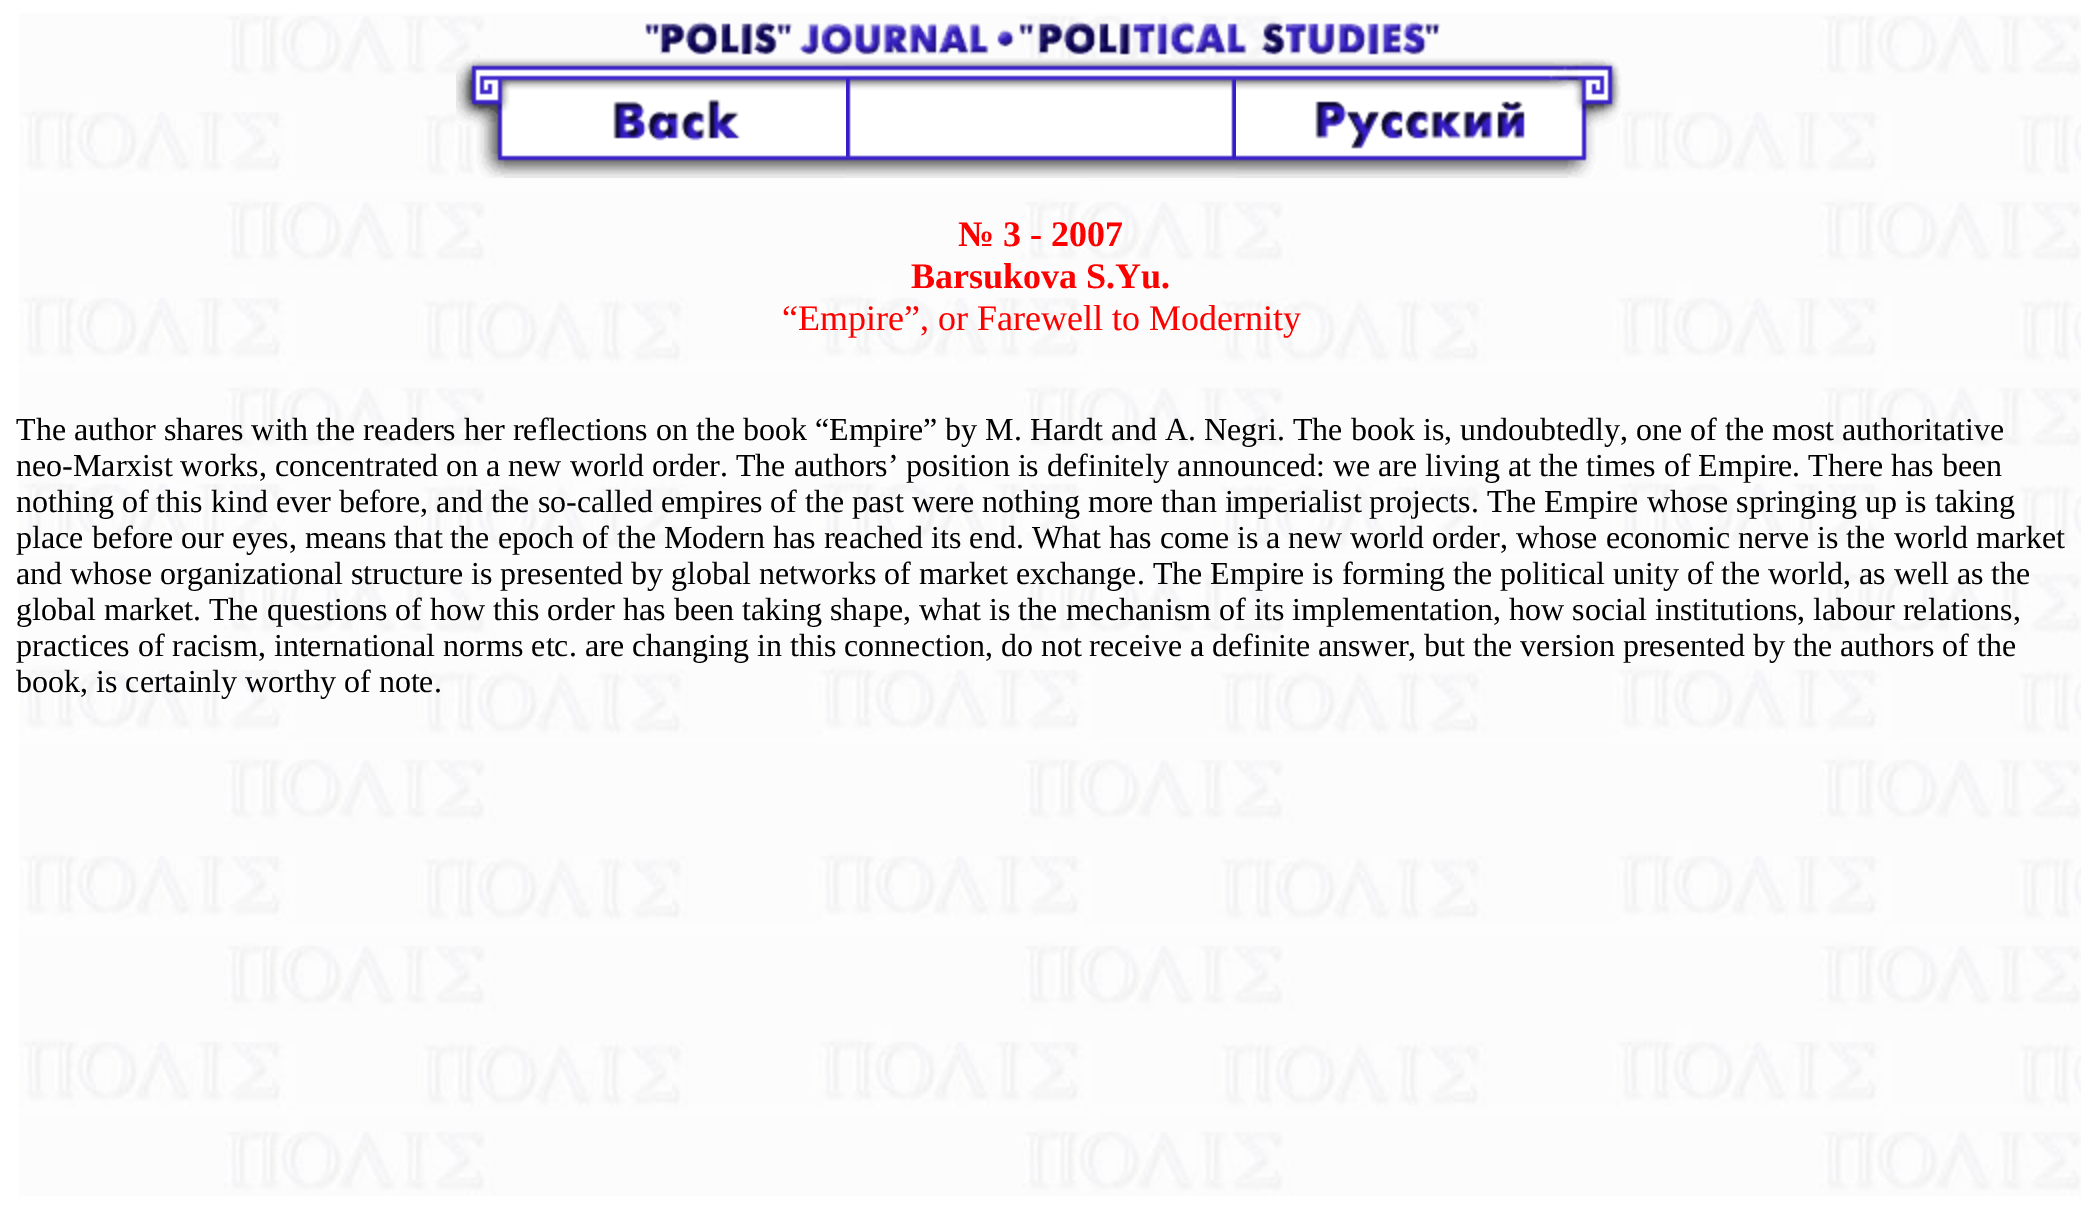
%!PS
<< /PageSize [2081 1211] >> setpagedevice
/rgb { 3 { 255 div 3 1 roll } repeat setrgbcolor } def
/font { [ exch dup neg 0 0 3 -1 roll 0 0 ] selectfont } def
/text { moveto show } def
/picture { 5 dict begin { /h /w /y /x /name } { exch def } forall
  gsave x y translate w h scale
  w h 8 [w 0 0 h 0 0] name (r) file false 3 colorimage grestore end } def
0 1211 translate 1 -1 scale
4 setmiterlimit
255 255 255 rgb
0 0 2081 1211 rectfill
(img_01.rgb) 19 13 2062 1183 picture
(img_02.rgb) 645 21 796 34 picture
(img_03.rgb) 456 58 390 120 picture
(img_04.rgb) 846 58 390 120 picture
(img_05.rgb) 1236 58 386 120 picture
/LiberationSerif-Bold 36 font
255 0 0 rgb
(№ 3 - 2007) 958 246 text
(Barsukova S.Yu.) 911 288 text
/LiberationSerif-Regular 36 font
(“Empire”, or Farewell to Modernity) 782 330 text
/LiberationSerif-Regular 32 font
0 0 0 rgb
(The author shares with the readers her reflections on the book “Empire” by M. Hardt and A. Negri. The book is, undoubtedly, one of the most authoritative) 16 440 text
(neo-Marxist works, concentrated on a new world order. The authors’ position is definitely announced: we are living at the times of Empire. There has been) 16 476 text
(nothing of this kind ever before, and the so-called empires of the past were nothing more than imperialist projects. The Empire whose springing up is taking) 16 512 text
(place before our eyes, means that the epoch of the Modern has reached its end. What has come is a new world order, whose economic nerve is the world market) 16 548 text
(and whose organizational structure is presented by global networks of market exchange. The Empire is forming the political unity of the world, as well as the) 16 584 text
(global market. The questions of how this order has been taking shape, what is the mechanism of its implementation, how social institutions, labour relations,) 16 620 text
(practices of racism, international norms etc. are changing in this connection, do not receive a definite answer, but the version presented by the authors of the) 16 656 text
(book, is certainly worthy of note.) 16 692 text
showpage
